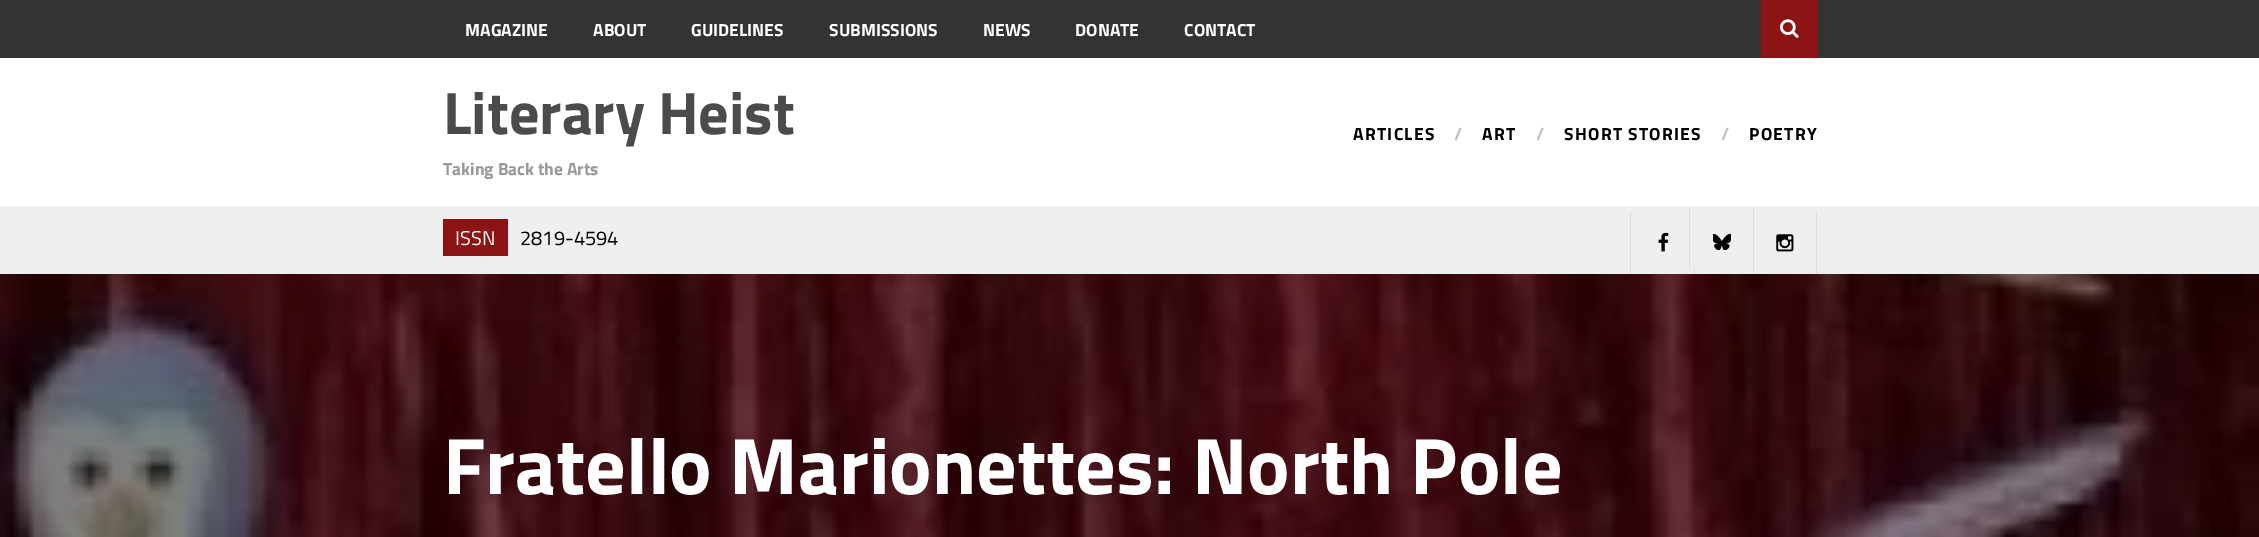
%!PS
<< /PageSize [2259 537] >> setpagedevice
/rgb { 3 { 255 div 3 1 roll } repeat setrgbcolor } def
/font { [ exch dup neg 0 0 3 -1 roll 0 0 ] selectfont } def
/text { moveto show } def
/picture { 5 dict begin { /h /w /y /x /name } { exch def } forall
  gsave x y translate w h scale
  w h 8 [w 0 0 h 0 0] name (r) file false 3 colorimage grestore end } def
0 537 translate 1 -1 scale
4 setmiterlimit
255 255 255 rgb
0 0 2259 537 rectfill
51 51 51 rgb
0 0 2259 58 rectfill
140 20 21 rgb
1761 0 57 58 rectfill
(img_01.rgb) 1780 19 19 19 picture
239 239 239 rgb
0 206 2259 68 rectfill
140 20 21 rgb
443 219 65 37 rectfill
222 222 222 rgb
1694 269 1 5 rectfill
1630 211 1 63 rectfill
(img_02.rgb) 1658 232 11 20 picture
1753 206 1 68 rectfill
1689 206 1 63 rectfill
(img_03.rgb) 1713 234 18 16 picture
1816 211 1 63 rectfill
(img_04.rgb) 1776 234 18 18 picture
(img_05.rgb) 0 274 2259 263 picture
/TitilliumWeb-Bold 17.5 font
255 255 255 rgb
(MAGAZINE) 465 36 text
(ABOUT) 593 36 text
(GUIDELINES) 691 36 text
(SUBMISSIONS) 829 36 text
(NEWS) 983 36 text
(DONATE) 1075 36 text
(CONTACT) 1184 36 text
/TitilliumWeb-Bold 60 font
75 75 75 rgb
(Literary Heist) 443 134 text
/TitilliumWeb-Bold 17.5 font
153 153 153 rgb
(Taking Back the Arts) 443 175 text
0 0 0 rgb
1353 140 moveto 1.25 0 (ARTICLES) ashow
192 192 192 rgb
1454 140 moveto 1.25 0 (/) ashow
0 0 0 rgb
1482 140 moveto 1.25 0 (ART) ashow
192 192 192 rgb
1536 140 moveto 1.25 0 (/) ashow
0 0 0 rgb
1564 140 moveto 1.25 0 (SHORT STORIES) ashow
192 192 192 rgb
1721 140 moveto 1.25 0 (/) ashow
0 0 0 rgb
1749 140 moveto 1.25 0 (POETRY) ashow
/TitilliumWeb-Regular 20 font
255 255 255 rgb
(ISSN) 455 245 text
0 0 0 rgb
(2819-4594) 520 245 text
/TitilliumWeb-Bold 80 font
255 255 255 rgb
(Fratello Marionettes: North Pole) 443 494 text
showpage
